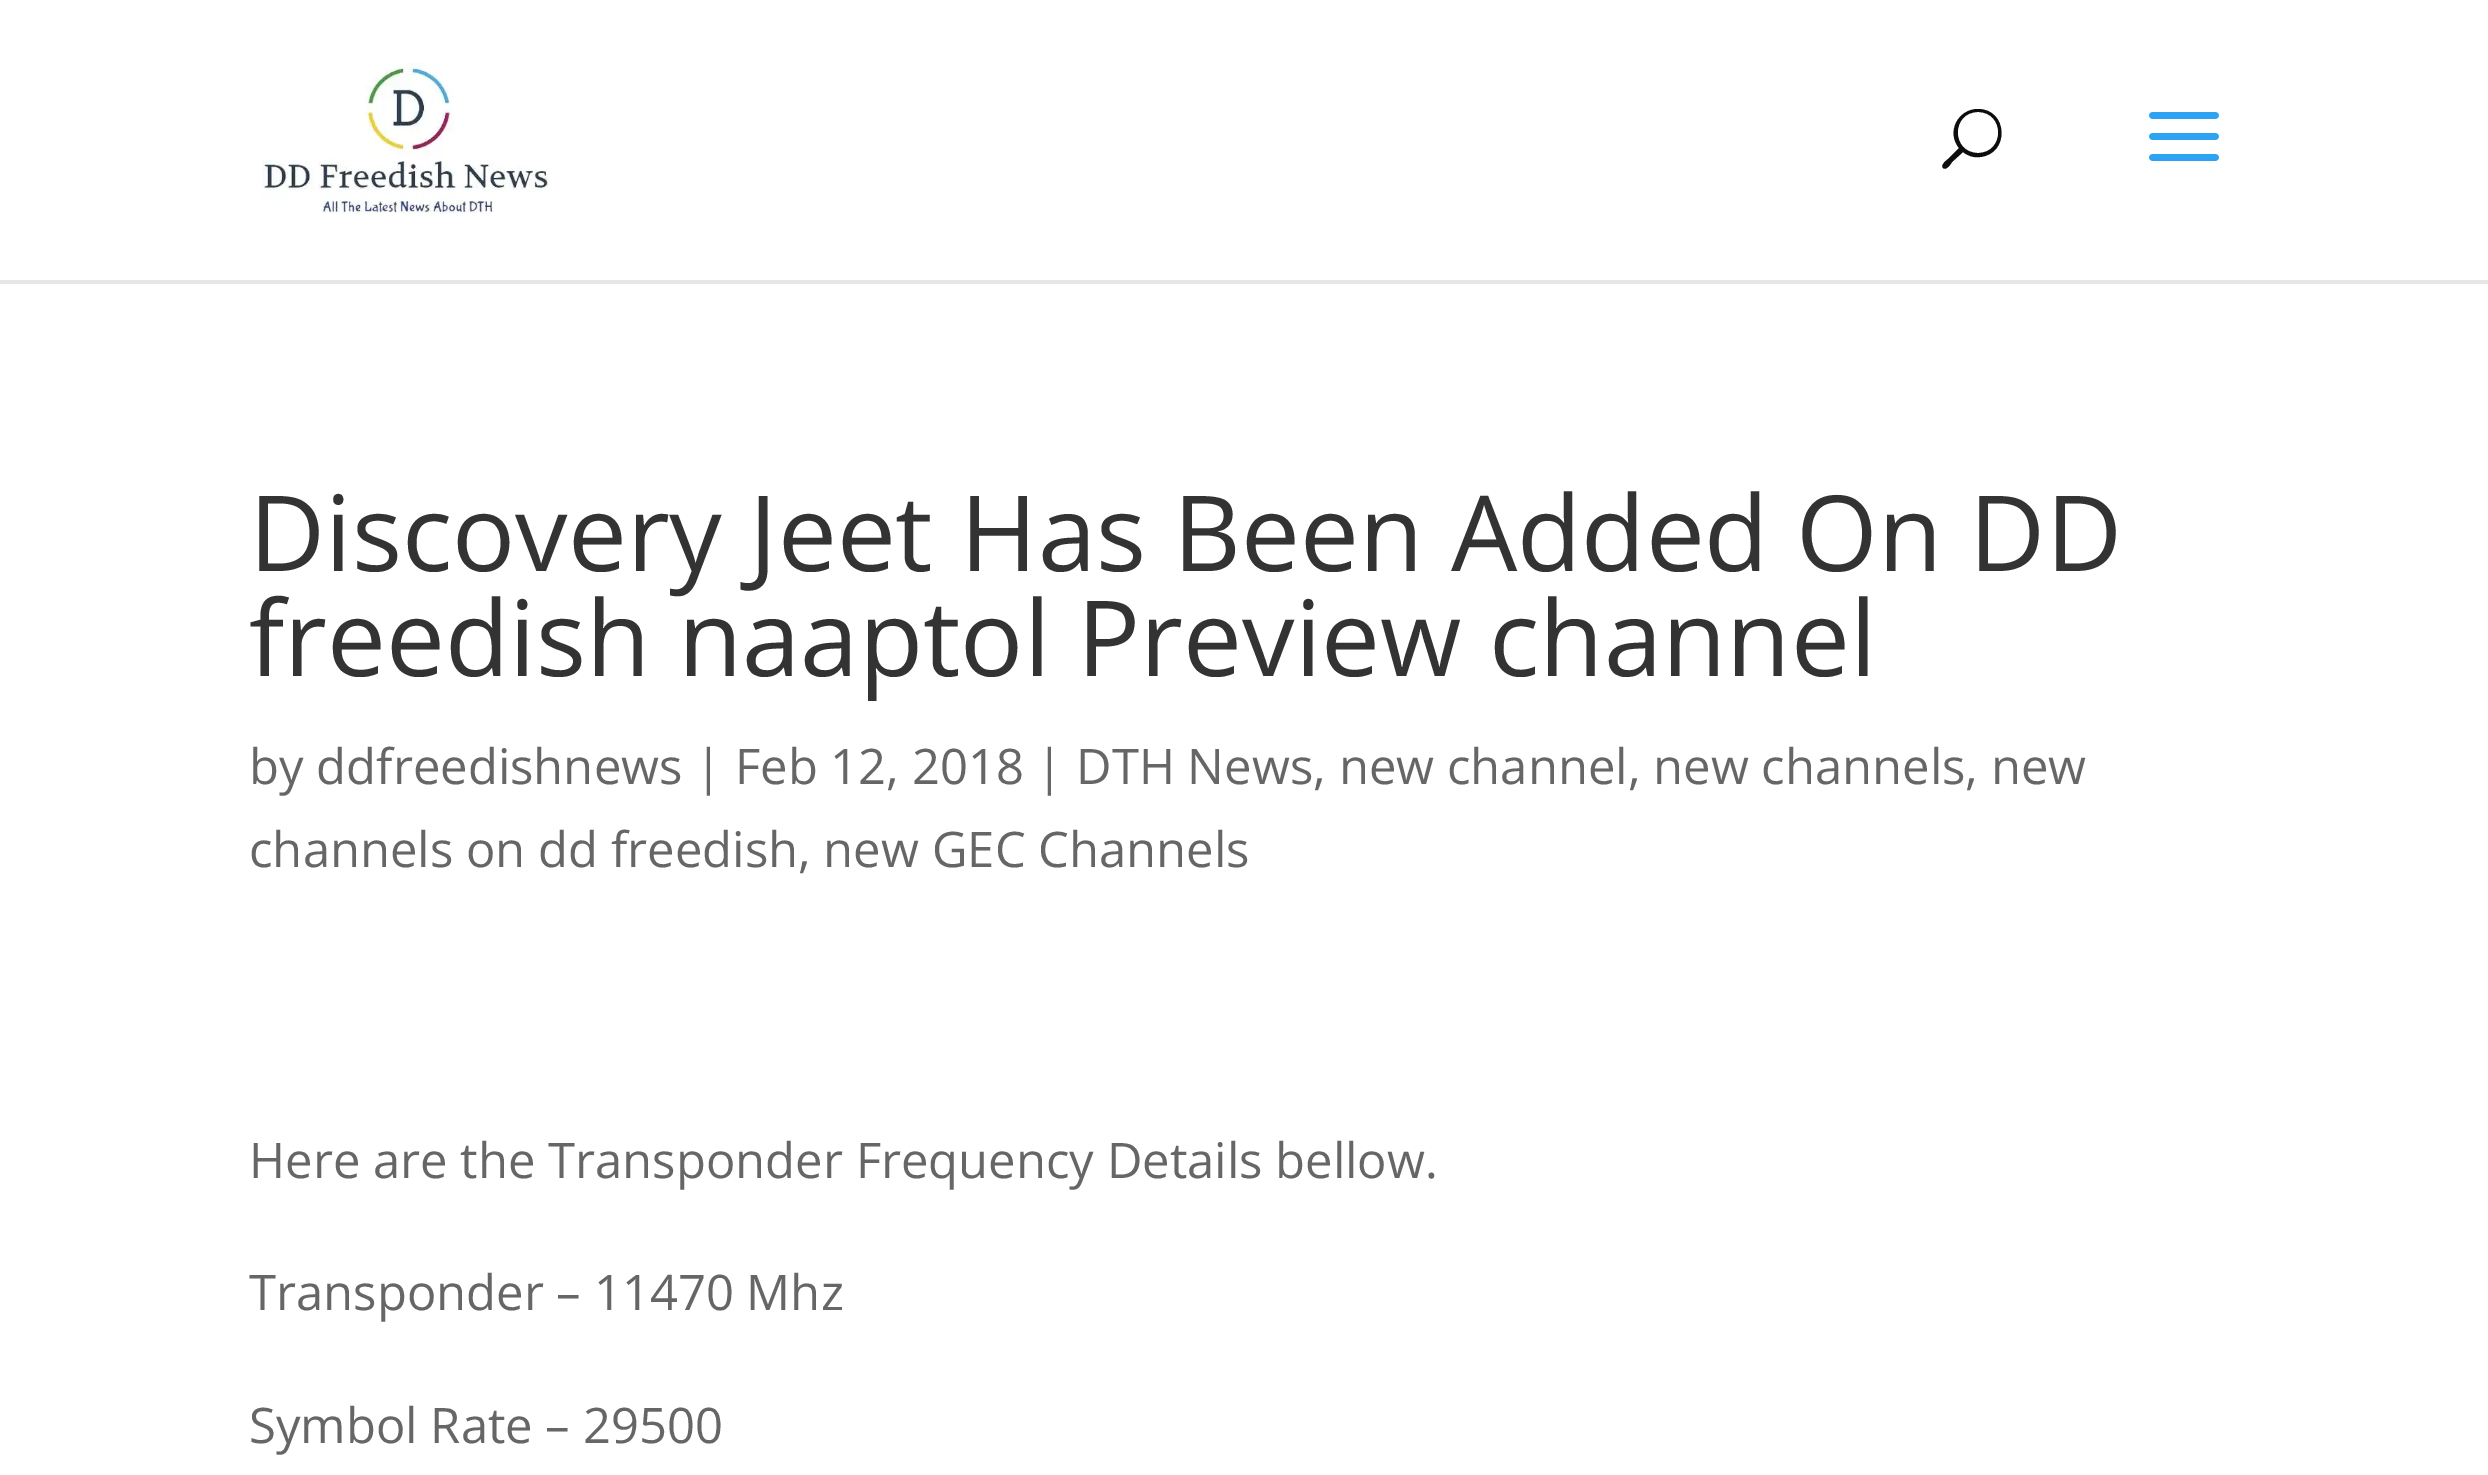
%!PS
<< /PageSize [2488 1475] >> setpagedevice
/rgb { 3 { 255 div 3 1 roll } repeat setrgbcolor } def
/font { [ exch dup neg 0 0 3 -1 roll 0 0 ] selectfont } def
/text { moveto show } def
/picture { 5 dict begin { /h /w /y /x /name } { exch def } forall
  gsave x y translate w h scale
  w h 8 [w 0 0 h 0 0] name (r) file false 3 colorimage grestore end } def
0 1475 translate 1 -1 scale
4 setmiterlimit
255 255 255 rgb
0 0 2488 1475 rectfill
230 230 230 rgb
0 280 moveto 0 4 rlineto 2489 0 rlineto 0 -280 rlineto -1 0 rlineto 0 276 rlineto closepath fill
(img_01.rgb) 262 63 287 151 picture
13 13 13 rgb
1978 109 moveto -20 0 -32 23 -19 39 rcurveto -11 11 rlineto -1 1 -8 6 -5 9 rcurveto 3 3 8 -4 9 -6 rcurveto 11 -10 rlineto 5 4 11 6 17 5 rcurveto 30 -3 28 -48 -2 -48 rcurveto closepath 1978 153 moveto -27 0 -27 -41 0 -41 rcurveto 27 0 27 41 0 41 rcurveto closepath fill
(img_02.rgb) 2149 112 70 49 picture
/OpenSans-Regular 105 font
51 51 51 rgb
(Discovery Jeet Has Been Added On DD) 249 571 text
(freedish naaptol Preview channel) 249 676 text
/OpenSans-Regular 49 font
102 102 102 rgb
(by ddfreedishnews | Feb 12, 2018 | DTH News, new channel, new channels, new) 249 784 text
(channels on dd freedish, new GEC Channels) 249 867 text
(Here are the Transponder Frequency Details bellow.) 249 1178 text
(Transponder – 11470 Mhz) 249 1310 text
(Symbol Rate – 29500) 249 1443 text
showpage
